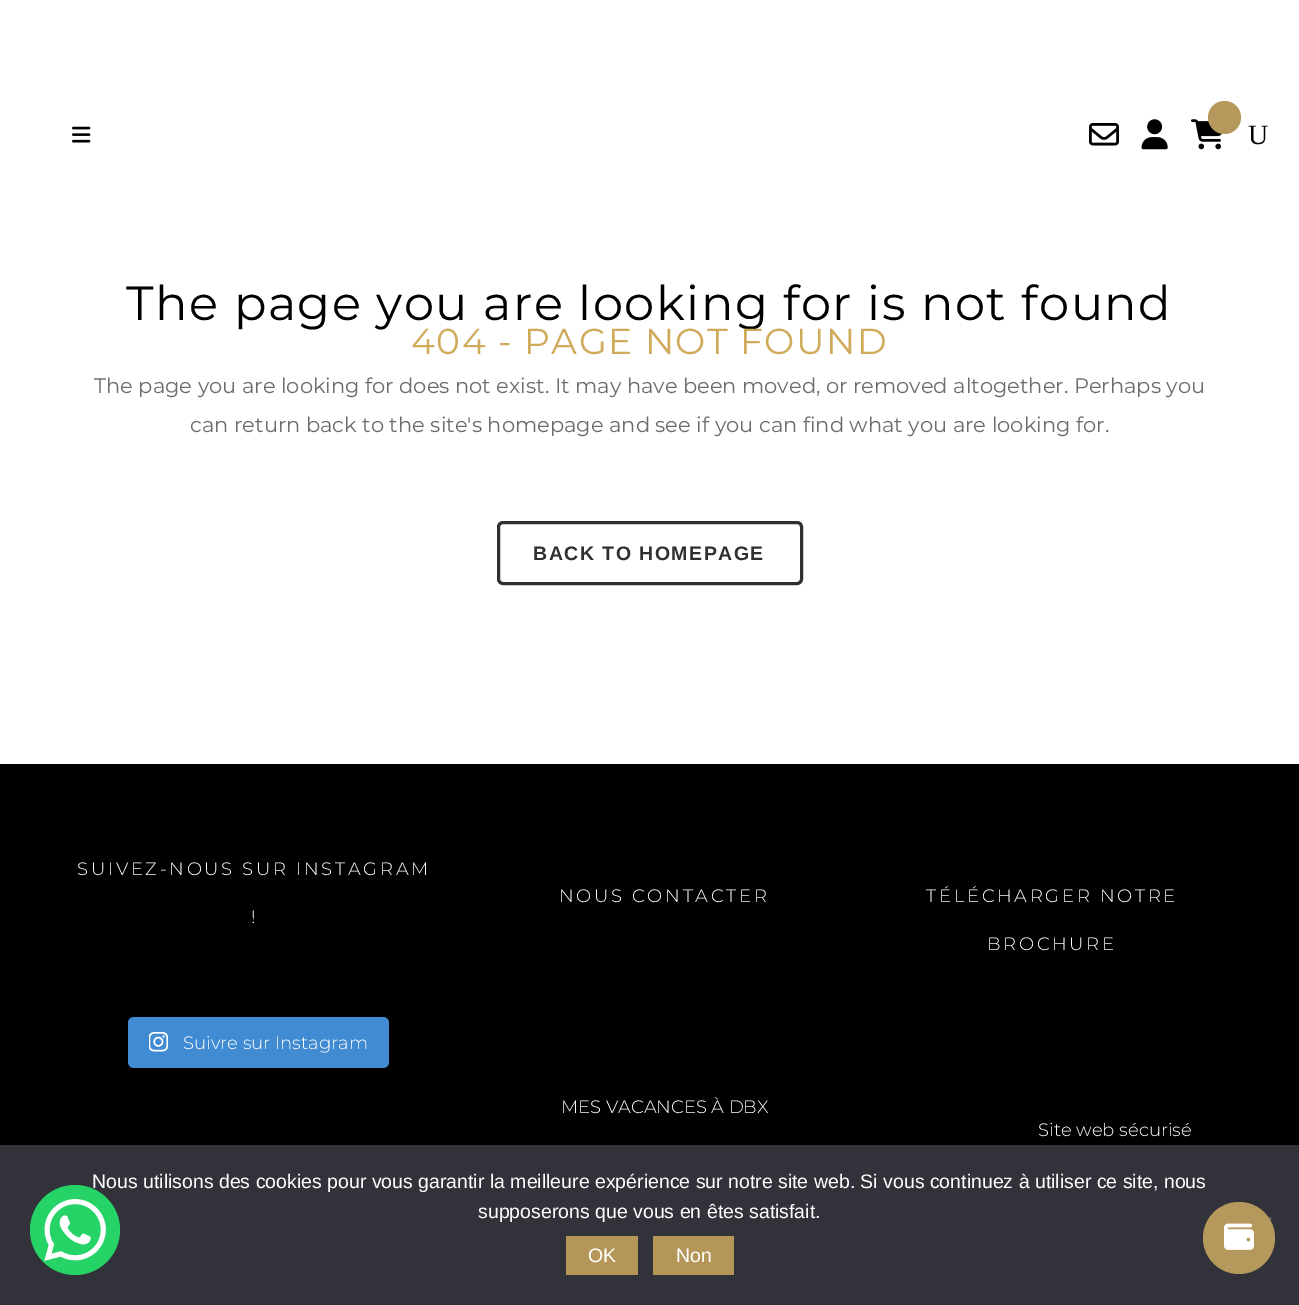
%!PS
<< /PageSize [1299 1305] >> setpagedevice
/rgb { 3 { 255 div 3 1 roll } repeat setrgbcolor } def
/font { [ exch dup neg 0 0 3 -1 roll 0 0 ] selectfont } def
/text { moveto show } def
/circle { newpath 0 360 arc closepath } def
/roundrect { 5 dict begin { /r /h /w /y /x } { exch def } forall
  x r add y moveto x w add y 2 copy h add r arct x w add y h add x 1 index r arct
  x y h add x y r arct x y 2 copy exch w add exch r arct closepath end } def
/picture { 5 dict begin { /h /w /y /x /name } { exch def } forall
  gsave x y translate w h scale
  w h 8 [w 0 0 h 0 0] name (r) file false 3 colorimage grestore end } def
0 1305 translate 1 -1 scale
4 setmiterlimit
255 255 255 rgb
0 0 1299 1305 rectfill
(img_01.rgb) 72 126 19 17 picture
(img_02.rgb) 1089 123 30 23 picture
(img_03.rgb) 1141 119 27 31 picture
(img_04.rgb) 1191 119 31 31 picture
181 152 91 rgb
1224.5 117.5 16.5 circle fill
48 48 48 rgb
3 setlinewidth
498.5 522.5 303 61 4.5 roundrect stroke
0 0 0 rgb
0 764 1299 381 rectfill
64 139 209 rgb
128 1017 261 51 6 roundrect fill
(img_05.rgb) 149 1032 19 20 picture
50 50 58 rgb
0 1145 1299 160 rectfill
89 89 93 rgb
1270 1216.5 moveto 2 2 rlineto -16 16 rlineto -2 -2 rlineto closepath fill
179 150 88 rgb
566 1236 72 39 rectfill
653 1236 81 39 rectfill
181 152 91 rgb
1239 1238 36 circle fill
(img_07.rgb) 1224 1223 30 27 picture
/LiberationSerif-Regular 28 font
0 0 0 rgb
(U) 1248 144 text
/Montserrat-Regular 48 font
126 320 moveto 1.5 0 (The page you are looking for is not found) ashow
/Montserrat-Regular 21 font
112 107 107 rgb
(The page you are looking for does not exist. It may have been moved, or removed altogether. Perhaps you) 94 393 text
(can return back to the site's homepage and see if you can find what you are looking for.) 190 432 text
/LiberationSans-Bold 19.5 font
48 48 48 rgb
533 560 moveto 1.5 0 (BACK TO HOMEPAGE) ashow
/Montserrat-Regular 36 font
207 171 91 rgb
411 354 moveto 1.5 0 (404 - PAGE NOT FOUND) ashow
/Montserrat-Light 18 font
255 255 255 rgb
77 875 moveto 2.7 0 (SUIVEZ-NOUS SUR INSTAGRAM) ashow
251 923 moveto 2.7 0 (!) ashow
(Suivre sur Instagram) 183 1049 text
559 902 moveto 2.7 0 (NOUS CONTACTER) ashow
(MES VACANCES À DBX) 561 1113 text
926 902 moveto 2.7 0 (TÉLÉCHARGER NOTRE) ashow
987 950 moveto 2.7 0 (BROCHURE) ashow
(Site web sécurisé) 1038 1136 text
/LiberationSans-Regular 19.5 font
(Nous utilisons des cookies pour vous garantir la meilleure expérience sur notre site web. Si vous continuez à utiliser ce site, nous) 92 1188 text
37 211 102 rgb
75 1230 45 circle fill
(img_06.rgb) 44 1199 62 62 picture
255 255 255 rgb
(supposerons que vous en êtes satisfait.) 478 1218 text
(OK) 588 1262 text
(Non) 676 1262 text
showpage
